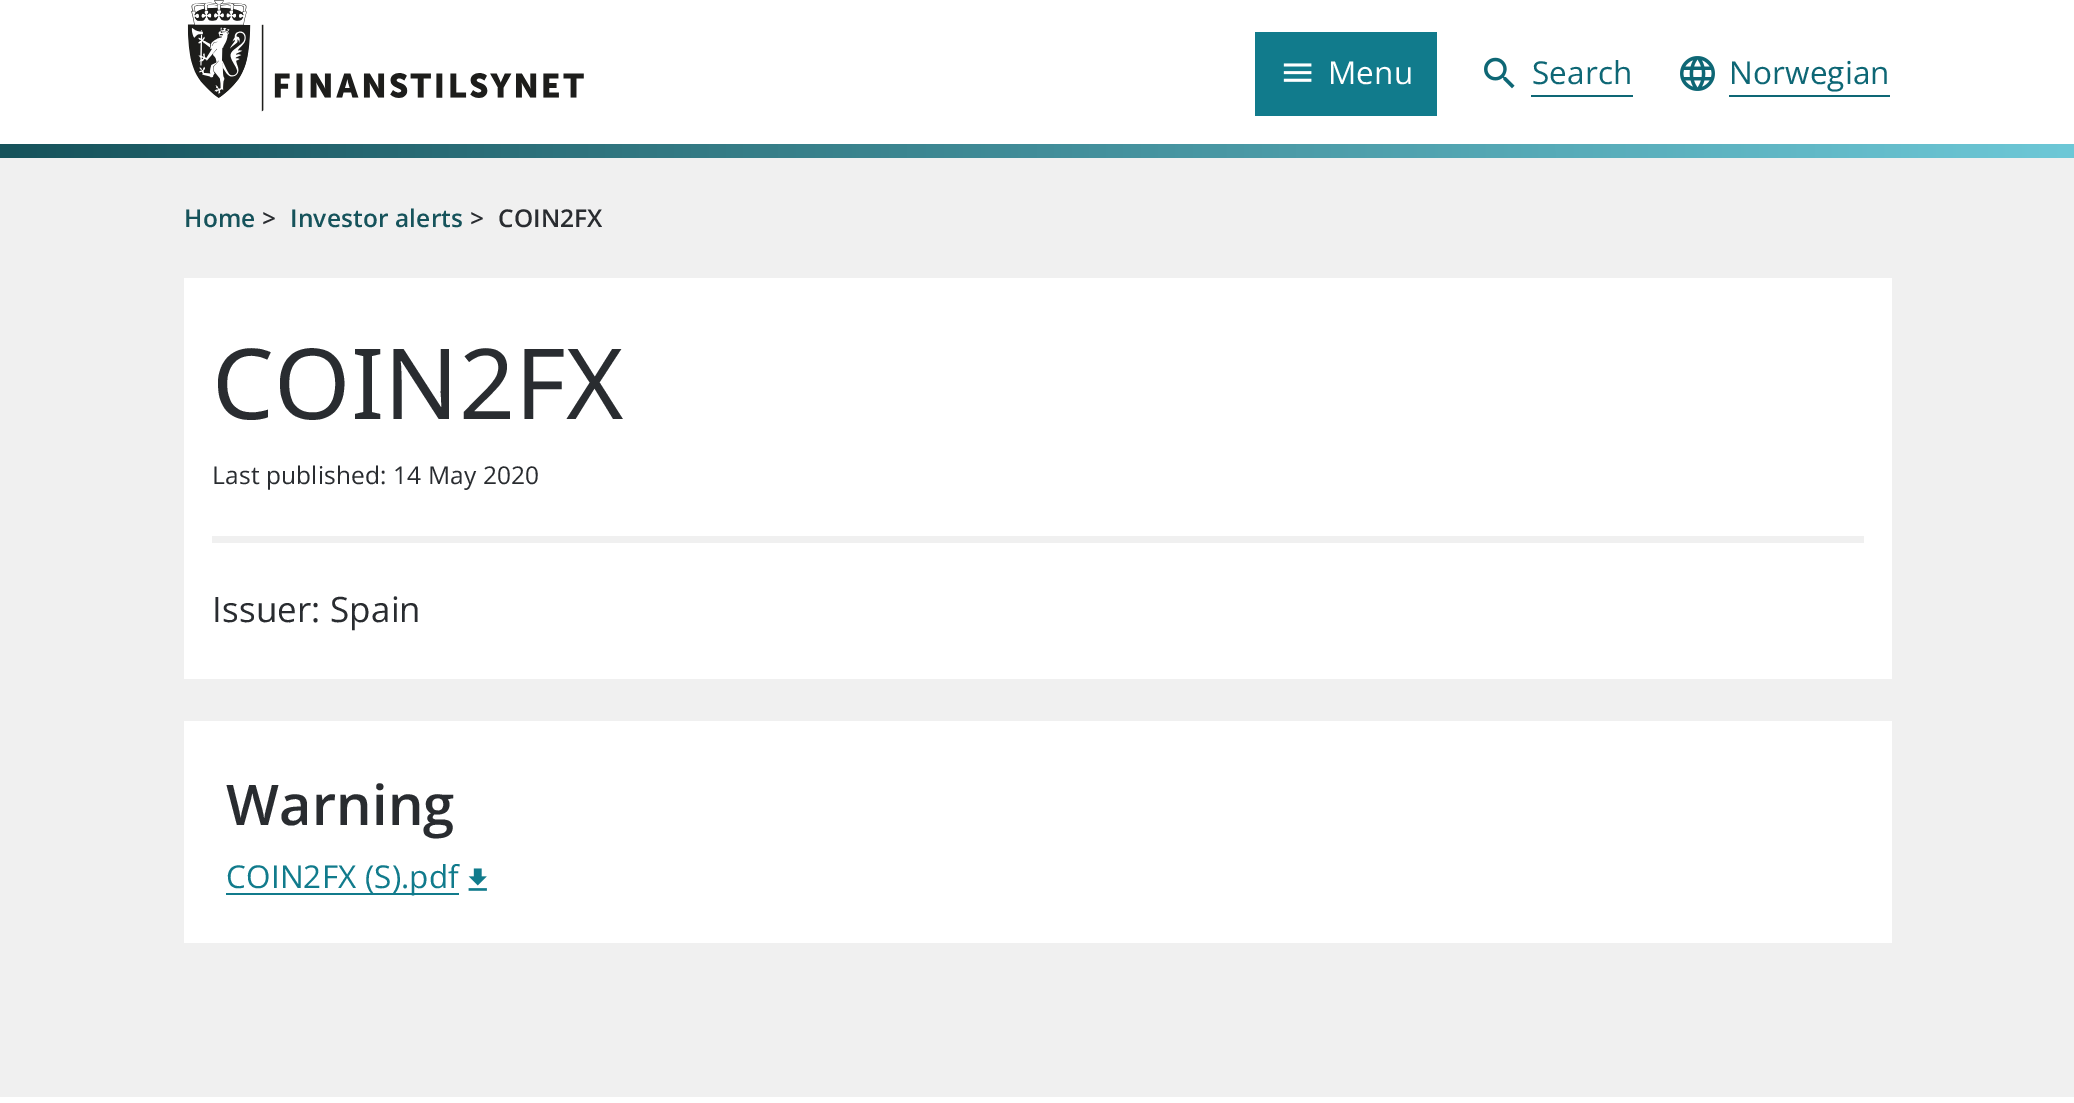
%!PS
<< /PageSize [2074 1103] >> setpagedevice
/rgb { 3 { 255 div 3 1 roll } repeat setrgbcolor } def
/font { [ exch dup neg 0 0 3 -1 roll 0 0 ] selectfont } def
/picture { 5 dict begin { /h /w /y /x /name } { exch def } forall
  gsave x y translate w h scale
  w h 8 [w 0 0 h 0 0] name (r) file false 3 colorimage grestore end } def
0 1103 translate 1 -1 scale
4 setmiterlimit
240 240 240 rgb
0 0 2074 1103 rectfill
255 255 255 rgb
0 0 2074 144 rectfill
(img_01.rgb) 187 0 397 112 picture
17 123 140 rgb
1255 32 182 84 rectfill
(img_02.rgb) 1283 63 29 19 picture
(img_03.rgb) 1484 57 31 32 picture
14 103 117 rgb
1531 95 102 2 rectfill
(img_04.rgb) 1680 56 35 35 picture
1729 95 161 2 rectfill
gsave 0 144 moveto 2074 0 rlineto 0 14 rlineto -2074 0 rlineto closepath clip newpath
<< /ShadingType 2 /ColorSpace /DeviceRGB /Coords [0 151 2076 150] /Extend [true true] /Function << /FunctionType 2 /Domain [0 1] /C0 [0.086 0.325 0.357] /C1 [0.427 0.784 0.843] /N 1 >> >> shfill grestore
255 255 255 rgb
184 278 1708 401 rectfill
240 240 240 rgb
212 536 1652 7 rectfill
255 255 255 rgb
184 721 1708 222 rectfill
17 123 140 rgb
226 893 233 2 rectfill
(img_05.rgb) 468 868 19 23 picture
255 255 255 rgb
0 1097 2074 6 rectfill
/OpenSans-Regular 31.5 font
1328 84 moveto 0.15 0 (Menu) ashow
14 103 117 rgb
1532 84 moveto 0.15 0 (Search) ashow
1729 84 moveto 0.15 0 (Norwegian) ashow
/OpenSans-SemiBold 24.5 font
22 83 91 rgb
184 227 moveto 0.15 0 (Home) ashow
41 44 48 rgb
262 227 moveto 0.15 0 (>) ashow
22 83 91 rgb
290 227 moveto 0.15 0 (Investor alerts) ashow
41 44 48 rgb
470 227 moveto 0.15 0 (>) ashow
498 227 moveto 0.15 0 (COIN2FX) ashow
/NotoSans-Regular 98 font
212 419 moveto 0.15 0 (COIN2FX) ashow
/OpenSans-Regular 24.5 font
212 484 moveto 0.15 0 (Last published: 14 May 2020) ashow
/OpenSans-Regular 35 font
212 622 moveto 0.15 0 (Issuer: Spain) ashow
/OpenSans-SemiBold 56 font
226 825 moveto 0.15 0 (Warning) ashow
/OpenSans-Regular 31.5 font
17 123 140 rgb
226 888 moveto 0.15 0 (COIN2FX \(S\).pdf) ashow
showpage
